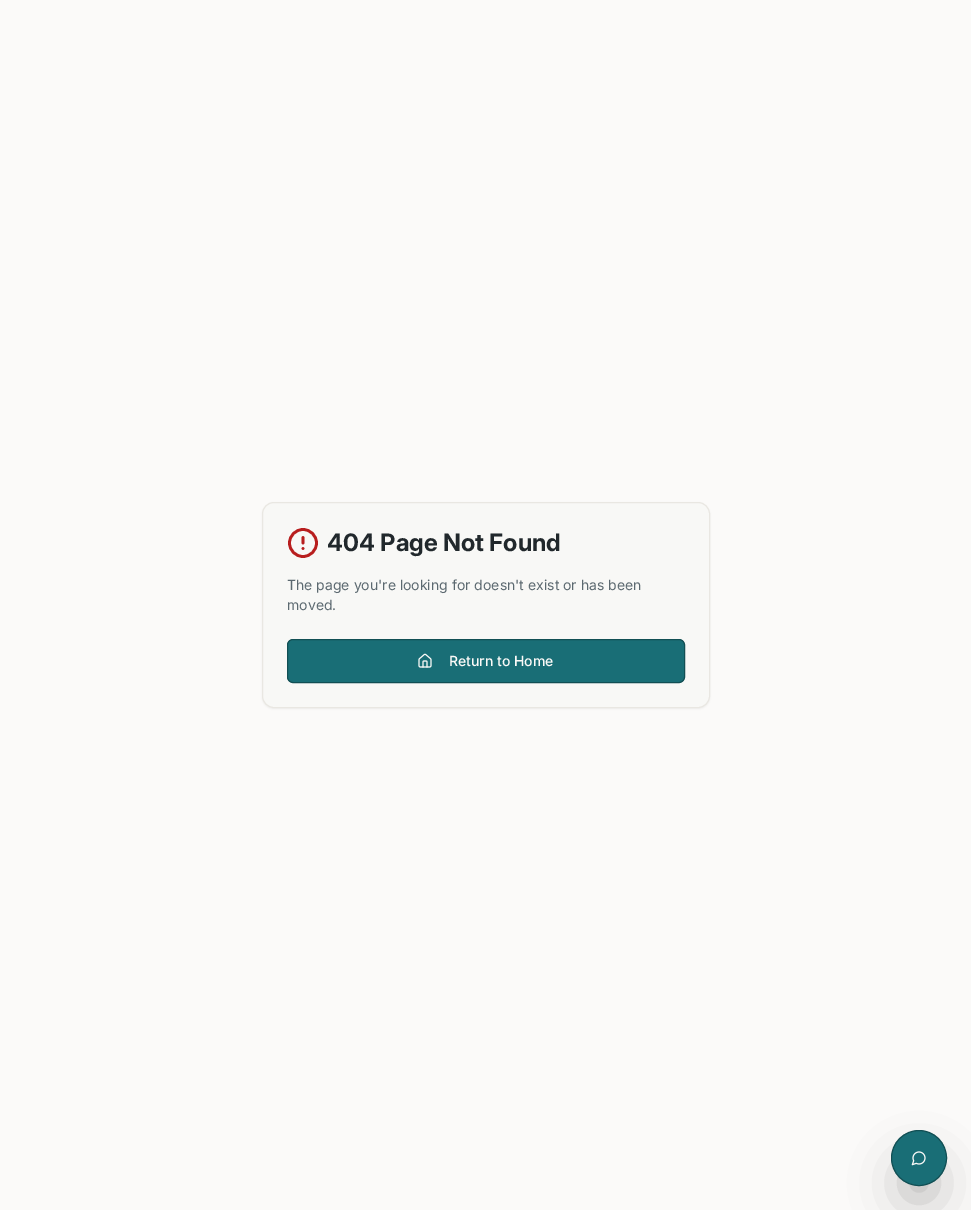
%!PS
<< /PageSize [971 1210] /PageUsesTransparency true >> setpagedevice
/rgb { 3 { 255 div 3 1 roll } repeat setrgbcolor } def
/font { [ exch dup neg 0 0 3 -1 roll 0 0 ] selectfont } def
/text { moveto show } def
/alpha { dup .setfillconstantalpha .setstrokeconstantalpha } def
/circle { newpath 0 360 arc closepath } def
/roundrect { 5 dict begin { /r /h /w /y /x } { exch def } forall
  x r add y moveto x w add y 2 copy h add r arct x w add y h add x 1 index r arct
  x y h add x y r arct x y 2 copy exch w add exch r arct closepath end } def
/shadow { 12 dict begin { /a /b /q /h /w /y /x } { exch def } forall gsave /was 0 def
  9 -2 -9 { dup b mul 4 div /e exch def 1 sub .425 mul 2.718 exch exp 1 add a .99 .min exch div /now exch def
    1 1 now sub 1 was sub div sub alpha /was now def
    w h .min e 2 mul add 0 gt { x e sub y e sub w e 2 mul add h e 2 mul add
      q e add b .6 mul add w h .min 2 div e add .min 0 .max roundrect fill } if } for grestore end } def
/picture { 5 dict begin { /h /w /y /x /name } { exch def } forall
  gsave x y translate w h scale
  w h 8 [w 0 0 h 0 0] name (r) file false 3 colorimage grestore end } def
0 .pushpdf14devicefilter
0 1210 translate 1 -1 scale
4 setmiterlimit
251 250 249 rgb
0 0 971 1210 rectfill
0 0 0 rgb
262 503 448 206 12 1 0.05 shadow
248 248 246 rgb
262.5 502.5 447 205 11.5 roundrect gsave fill grestore
233 231 226 rgb
stroke
184 30 30 rgb
2.7 setlinewidth
303 543 13.5 circle stroke
1 setlinecap
1 setlinejoin
303 537.5 moveto 0 5.5 rlineto 303 548.5 moveto 0 0 rlineto stroke
25 110 118 rgb
287.5 639.5 397 43 5.5 roundrect gsave fill grestore
18 79 84 rgb
1 setlinewidth
0 setlinecap
0 setlinejoin
stroke
(img_01.rgb) 418 653 14 15 picture
0 0 0 rgb
903 1167 32 32 16 25 0.25 shadow
25 110 118 rgb
919 1158 27.5 circle gsave fill grestore
18 79 84 rgb
stroke
(img_02.rgb) 911 1151 15 15 picture
/Inter-Bold 24 font
33 40 44 rgb
(404 Page Not Found) 327 551 text
/Inter-Regular 14 font
92 105 112 rgb
(The page you're looking for doesn't exist or has been) 287 590 text
(moved.) 287 610 text
/Inter-Medium 14 font
251 250 248 rgb
(Return to Home) 449 666 text
.poppdf14devicefilter showpage
